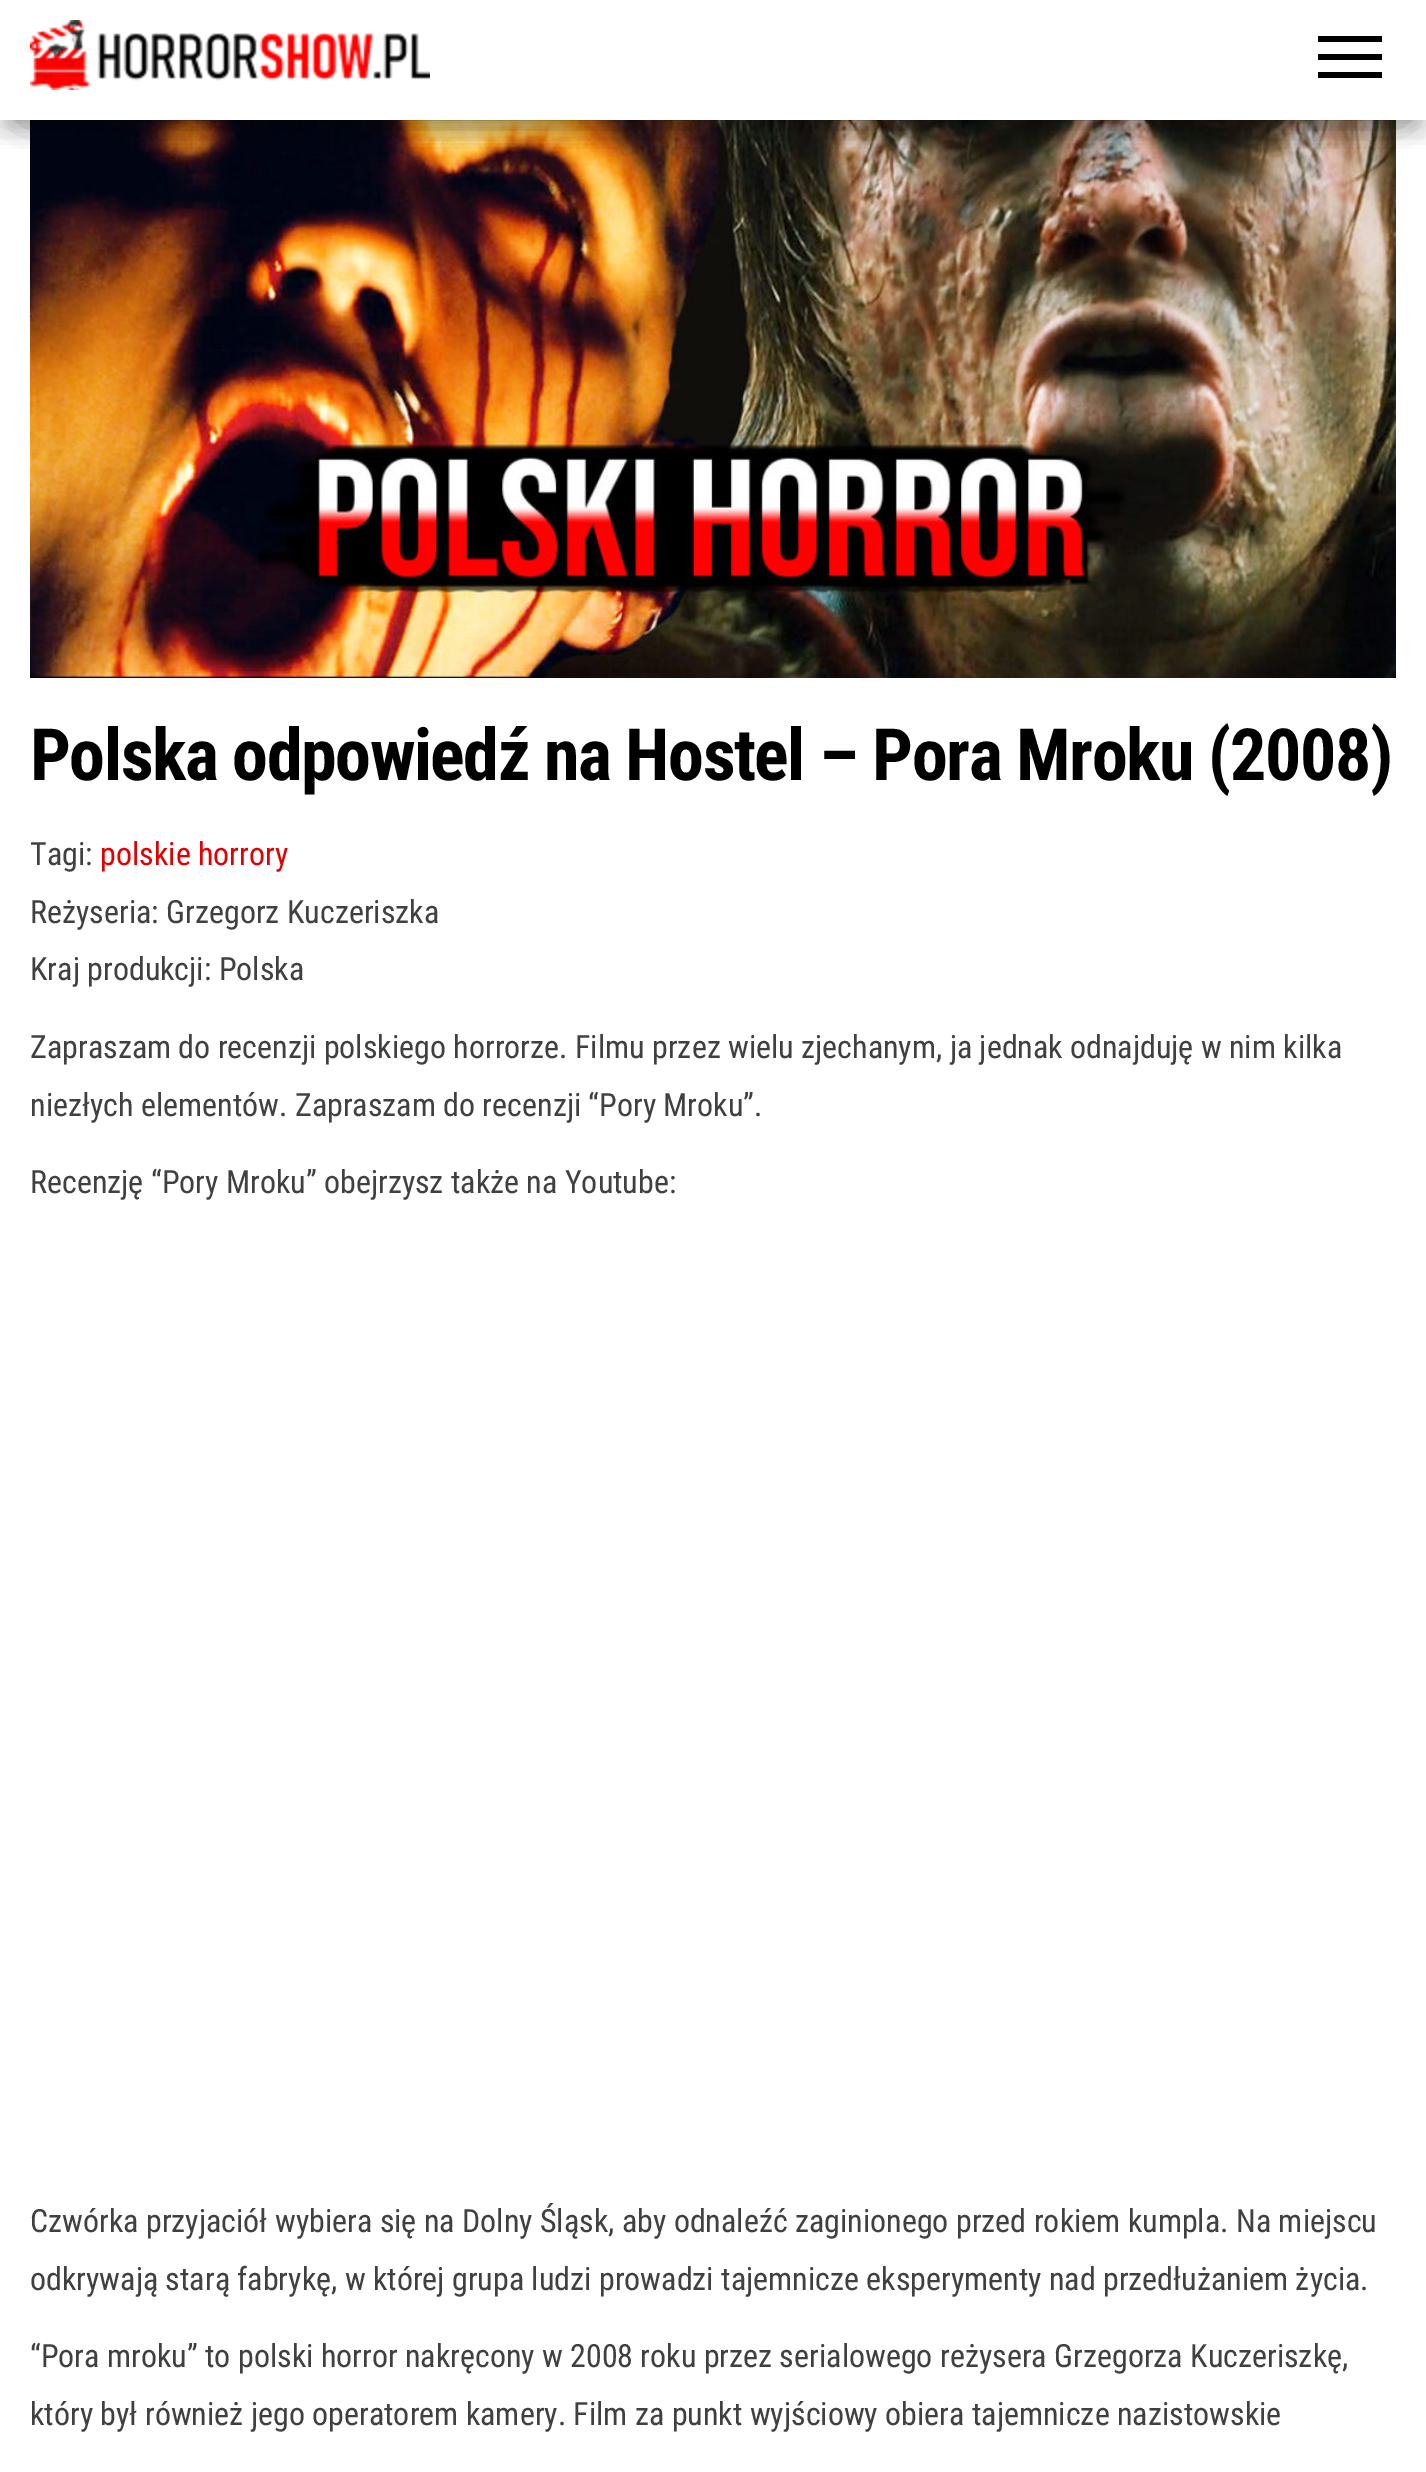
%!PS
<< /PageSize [1426 2472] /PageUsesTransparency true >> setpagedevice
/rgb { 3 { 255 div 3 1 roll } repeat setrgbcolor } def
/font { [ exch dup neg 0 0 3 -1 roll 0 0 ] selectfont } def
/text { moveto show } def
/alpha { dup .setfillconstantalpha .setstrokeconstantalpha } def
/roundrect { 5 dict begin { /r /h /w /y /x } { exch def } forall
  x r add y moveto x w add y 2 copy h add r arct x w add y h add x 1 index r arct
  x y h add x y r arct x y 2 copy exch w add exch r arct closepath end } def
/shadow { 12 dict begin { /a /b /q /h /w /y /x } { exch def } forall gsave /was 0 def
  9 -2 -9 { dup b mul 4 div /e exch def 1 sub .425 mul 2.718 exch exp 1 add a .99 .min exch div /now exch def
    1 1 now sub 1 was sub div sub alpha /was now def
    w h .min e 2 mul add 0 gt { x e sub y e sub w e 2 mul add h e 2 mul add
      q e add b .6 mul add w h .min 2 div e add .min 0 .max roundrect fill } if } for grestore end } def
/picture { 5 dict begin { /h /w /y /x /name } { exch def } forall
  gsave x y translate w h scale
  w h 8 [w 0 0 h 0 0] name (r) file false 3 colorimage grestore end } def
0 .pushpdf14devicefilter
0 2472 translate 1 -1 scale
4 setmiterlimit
255 255 255 rgb
0 0 1426 2472 rectfill
(img_02.rgb) 30 120 1366 558 picture
gsave
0 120 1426 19 rectclip
0 0 0 rgb
10 26 1406 100 0 10 0.2 shadow
grestore
gsave
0 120 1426 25 rectclip
0 0 0 rgb
0 6 1426 120 0 20 0.12 shadow
grestore
gsave
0 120 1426 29 rectclip
0 0 0 rgb
24 44 1378 72 0 20 0.42 shadow
grestore
(img_01.rgb) 30 20 400 70 picture
0 0 0 rgb
1318 36 64 6 rectfill
1318 54 64 6 rectfill
1318 72 64 6 rectfill
/RobotoCondensed-Bold 72 font
30 780 moveto -1.45 0 (Polska odpowiedź na Hostel – Pora Mroku \(2008\)) ashow
/RobotoCondensed-Regular 32 font
64 64 64 rgb
(Tagi:) 30 865 text
228 0 0 rgb
(polskie horrory) 100 865 text
64 64 64 rgb
(Reżyseria: Grzegorz Kuczeriszka) 30 923 text
(Kraj produkcji: Polska) 30 980 text
(Zapraszam do recenzji polskiego horrorze. Filmu przez wielu zjechanym, ja jednak odnajduję w nim kilka) 30 1058 text
(niezłych elementów. Zapraszam do recenzji “Pory Mroku”.) 30 1116 text
(Recenzję “Pory Mroku” obejrzysz także na Youtube:) 30 1193 text
(Czwórka przyjaciół wybiera się na Dolny Śląsk, aby odnaleźć zaginionego przed rokiem kumpla. Na miejscu) 30 2232 text
(odkrywają starą fabrykę, w której grupa ludzi prowadzi tajemnicze eksperymenty nad przedłużaniem życia.) 30 2290 text
(“Pora mroku” to polski horror nakręcony w 2008 roku przez serialowego reżysera Grzegorza Kuczeriszkę,) 30 2367 text
(który był również jego operatorem kamery. Film za punkt wyjściowy obiera tajemnicze nazistowskie) 30 2425 text
.poppdf14devicefilter showpage
